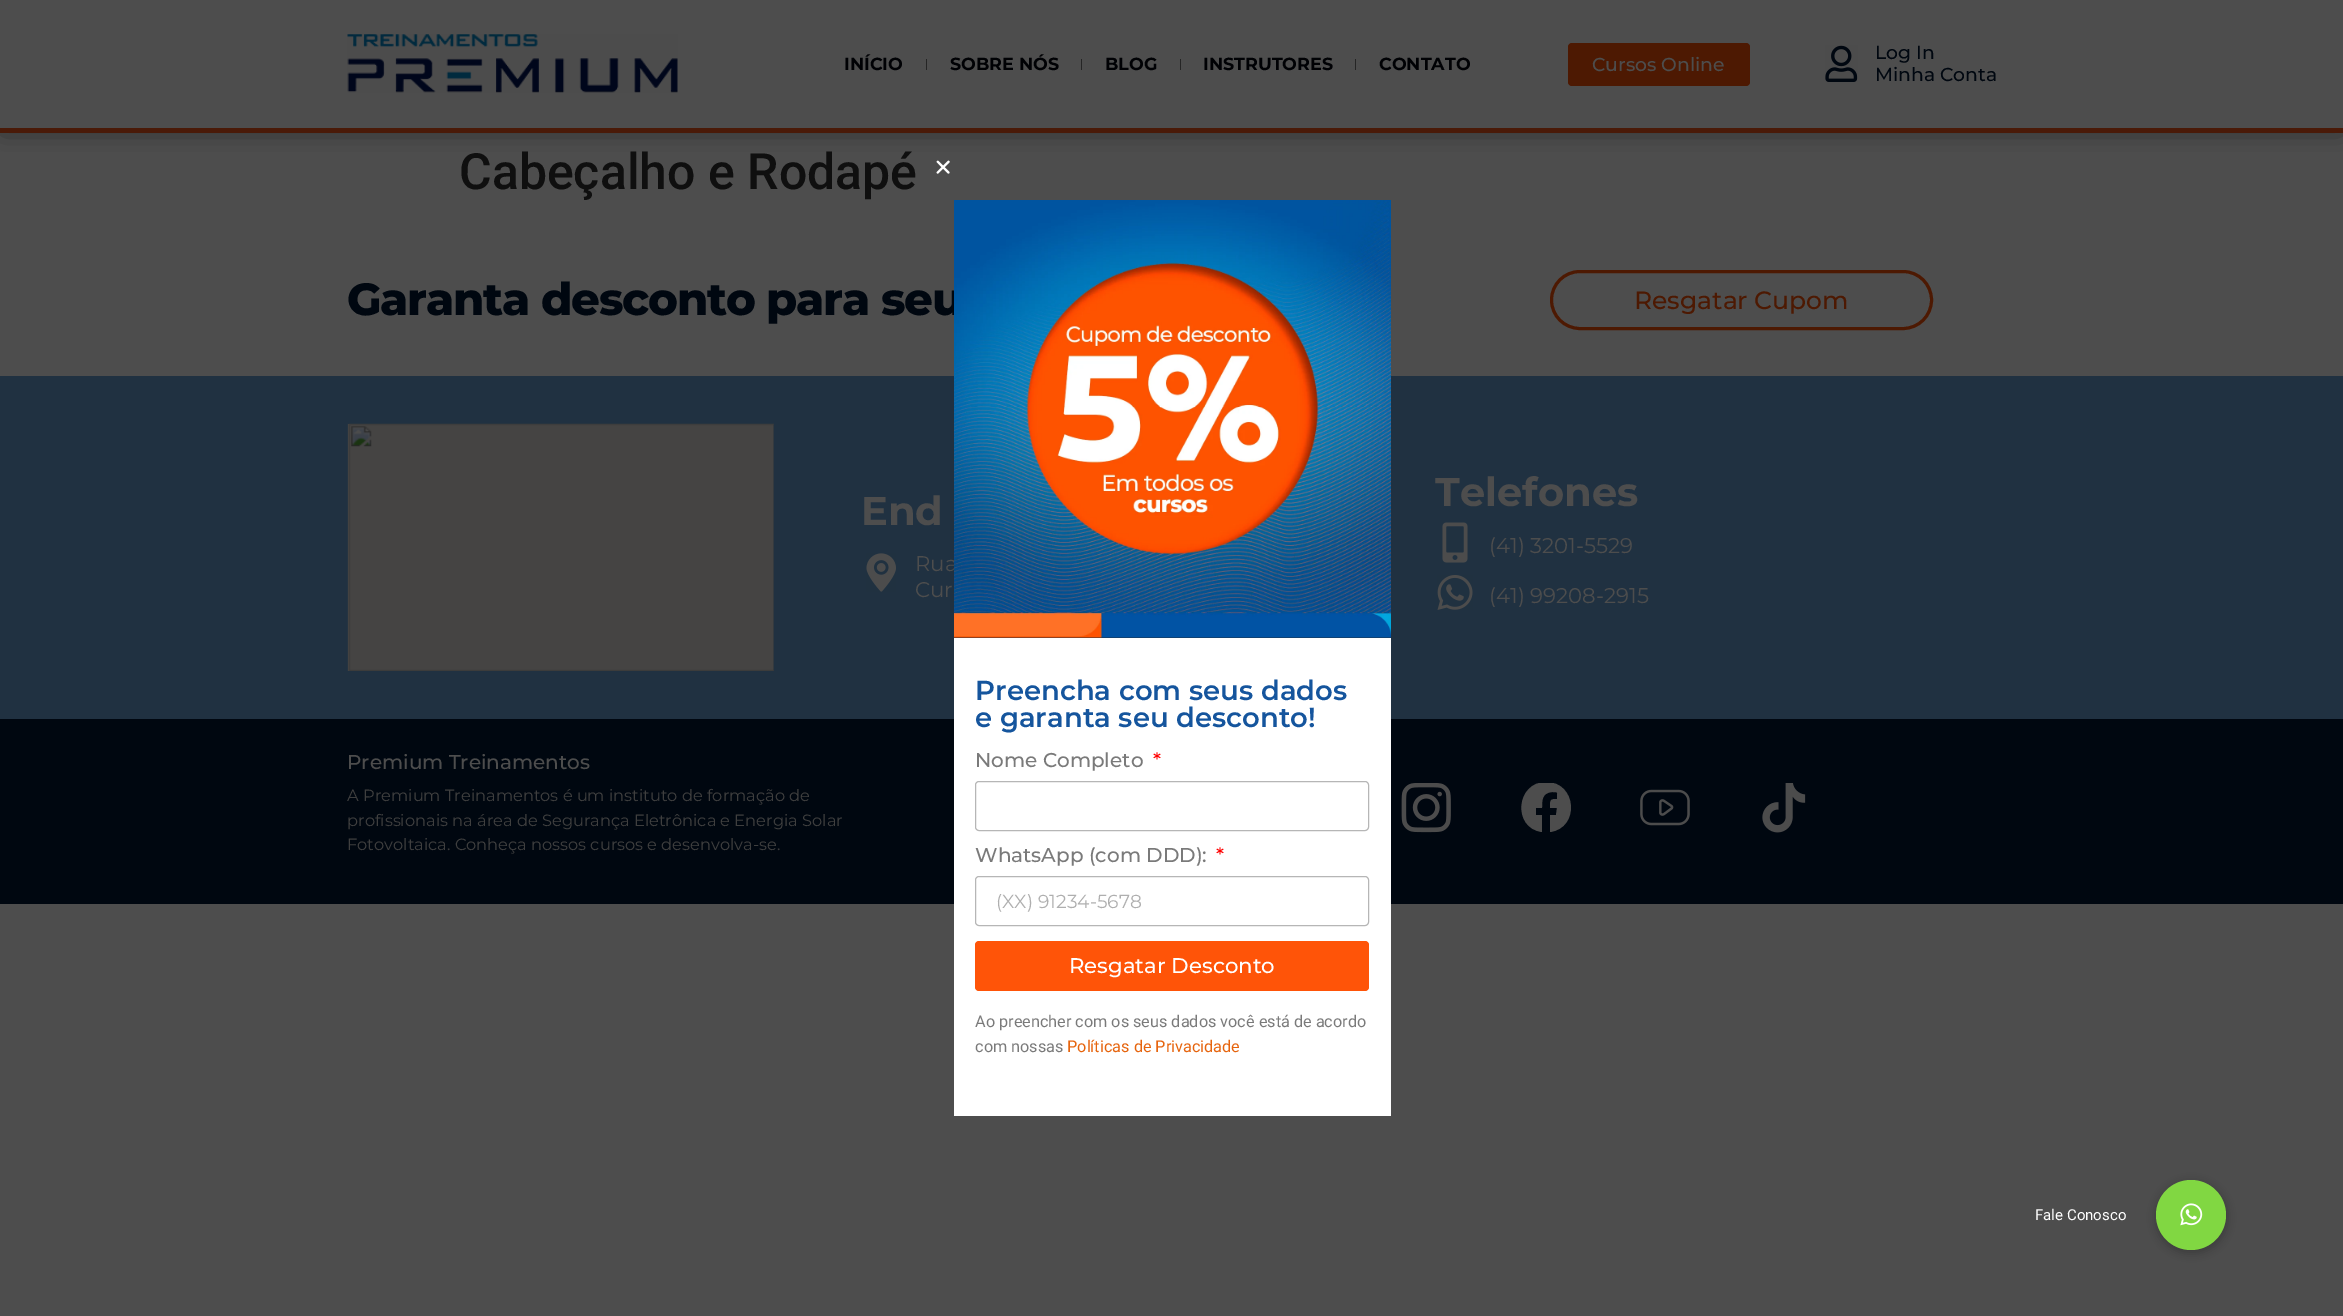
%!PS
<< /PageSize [2343 1316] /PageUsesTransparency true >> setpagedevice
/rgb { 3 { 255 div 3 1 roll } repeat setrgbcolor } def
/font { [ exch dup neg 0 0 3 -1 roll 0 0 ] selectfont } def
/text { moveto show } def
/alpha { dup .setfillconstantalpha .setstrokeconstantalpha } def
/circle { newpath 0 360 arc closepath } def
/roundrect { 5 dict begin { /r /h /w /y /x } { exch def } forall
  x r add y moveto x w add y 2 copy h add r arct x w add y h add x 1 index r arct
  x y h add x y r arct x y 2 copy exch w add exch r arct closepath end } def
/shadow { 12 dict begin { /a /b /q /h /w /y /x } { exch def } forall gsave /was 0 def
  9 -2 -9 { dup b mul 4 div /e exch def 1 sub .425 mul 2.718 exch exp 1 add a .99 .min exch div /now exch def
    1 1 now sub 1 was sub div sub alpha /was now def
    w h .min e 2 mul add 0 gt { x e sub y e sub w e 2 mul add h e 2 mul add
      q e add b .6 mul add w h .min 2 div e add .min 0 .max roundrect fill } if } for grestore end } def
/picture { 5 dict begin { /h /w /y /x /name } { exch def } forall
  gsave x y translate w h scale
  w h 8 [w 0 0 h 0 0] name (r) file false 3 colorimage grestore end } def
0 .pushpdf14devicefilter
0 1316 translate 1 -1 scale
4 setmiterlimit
77 77 77 rgb
0 0 2343 1316 rectfill
gsave
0 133 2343 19 rectclip
0 0 0 rgb
3 3 2338 127 0 12.5 0.5 shadow
grestore
74 26 8 rgb
0 128 2343 5 rectfill
(img_01.rgb) 347 34 331 59 picture
37 37 37 rgb
926 59 1 11 rectfill
1081 59 1 11 rectfill
1180 59 1 11 rectfill
1355 59 1 11 rectfill
77 25 2 rgb
1568 43 182 43 4 roundrect fill
(img_02.rgb) 1825 45 33 37 picture
3 setlinewidth
1551.5 271.5 380 57 28.5 roundrect stroke
32 49 65 rgb
0 376 2343 343 rectfill
(img_03.rgb) 347 423 427 248 picture
(img_04.rgb) 866 553 30 39 picture
(img_05.rgb) 1442 522 26 41 picture
(img_06.rgb) 1437 575 36 35 picture
0 7 16 rgb
0 719 2343 185 rectfill
(img_07.rgb) 1401 783 50 50 picture
gsave
1521 783 50 50 rectclip
77 77 77 rgb
1546 782 moveto -30 0 -34 46 -4 50 rcurveto 0 -17 rlineto -6 0 rlineto 0 -7 rlineto 6 0 rlineto 0 -8 0 -15 10 -16 rcurveto 7 0 5 0 5 7 rcurveto -7 0 -7 1 -7 9 rcurveto 7 0 rlineto -1 7 rlineto -6 0 rlineto 0 17 rlineto 30 -4 27 -50 -4 -50 rcurveto closepath fill
grestore
(img_08.rgb) 1640 789 50 37 picture
(img_09.rgb) 1762 783 44 50 picture
(img_10.rgb) 936 160 14 14 picture
255 255 255 rgb
954 638 437 478 rectfill
182 182 182 rgb
1 setlinewidth
975.5 781.5 393 49 3.5 roundrect stroke
975.5 876.5 393 49 3.5 roundrect stroke
255 84 8 rgb
975 941 394 50 4 roundrect fill
0 0 0 rgb
2155 1181 73 73 36.5 4 0.2 shadow
129 215 66 rgb
2191 1215 35 circle fill
(img_12.rgb) 2180 1203 23 23 picture
/Montserrat-Bold 17.5 font
0 1 4 rgb
(INÍCIO) 844 70 text
(SOBRE NÓS) 950 70 text
(BLOG) 1105 70 text
(INSTRUTORES) 1203 70 text
(CONTATO) 1379 70 text
/Montserrat-Medium 18.75 font
77 77 77 rgb
(Cursos Online) 1592 71 text
0 7 16 rgb
(Log In) 1875 59 text
(Minha Conta) 1875 81 text
/Roboto-Medium 50 font
15 15 15 rgb
(Cabeçalho e Rodapé) 459 189 text
/Montserrat-ExtraBold 45 font
0 7 16 rgb
347 315 moveto -1.25 0 (Garanta desconto para seu) ashow
/Montserrat-Medium 25 font
77 25 2 rgb
(Resgatar Cupom) 1634 309 text
/Montserrat-Bold 40 font
77 77 77 rgb
(End) 861 525 text
/Montserrat-Regular 21.25 font
(Rua) 915 571 text
(Cur) 915 597 text
/Montserrat-Bold 40 font
(Telefones) 1435 506 text
/Montserrat-Regular 21.25 font
(\(41\) 3201-5529) 1489 553 text
(\(41\) 99208-2915) 1489 603 text
/Montserrat-Medium 20 font
(Premium Treinamentos) 347 769 text
/Montserrat-Regular 16.25 font
63 63 63 rgb
(A Premium Treinamentos é um instituto de formação de) 347 801 text
(profissionais na área de Segurança Eletrônica e Energia Solar) 347 826 text
(Fotovoltaica. Conheça nossos cursos e desenvolva-se.) 347 850 text
(img_11.rgb) 954 200 437 438 picture
/Montserrat-SemiBold 27.5 font
21 85 157 rgb
(Preencha com seus dados) 975 700 text
(e garanta seu desconto!) 975 727 text
/Montserrat-Medium 20 font
122 122 122 rgb
(Nome Completo) 975 767 text
255 0 0 rgb
(*) 1153 767 text
122 122 122 rgb
(WhatsApp \(com DDD\):) 975 862 text
255 0 0 rgb
(*) 1216 862 text
/Montserrat-Regular 18.75 font
175 175 175 rgb
(\(XX\) 91234-5678) 996 908 text
/Montserrat-Medium 21.25 font
255 255 255 rgb
(Resgatar Desconto) 1069 973 text
/Roboto-Regular 16.25 font
122 122 122 rgb
(Ao preencher com os seus dados você está de acordo) 975 1027 text
(com nossas) 975 1052 text
230 100 13 rgb
(Políticas de Privacidade) 1067 1052 text
/Roboto-Regular 15 font
255 255 255 rgb
(Fale Conosco) 2035 1220 text
.poppdf14devicefilter showpage
